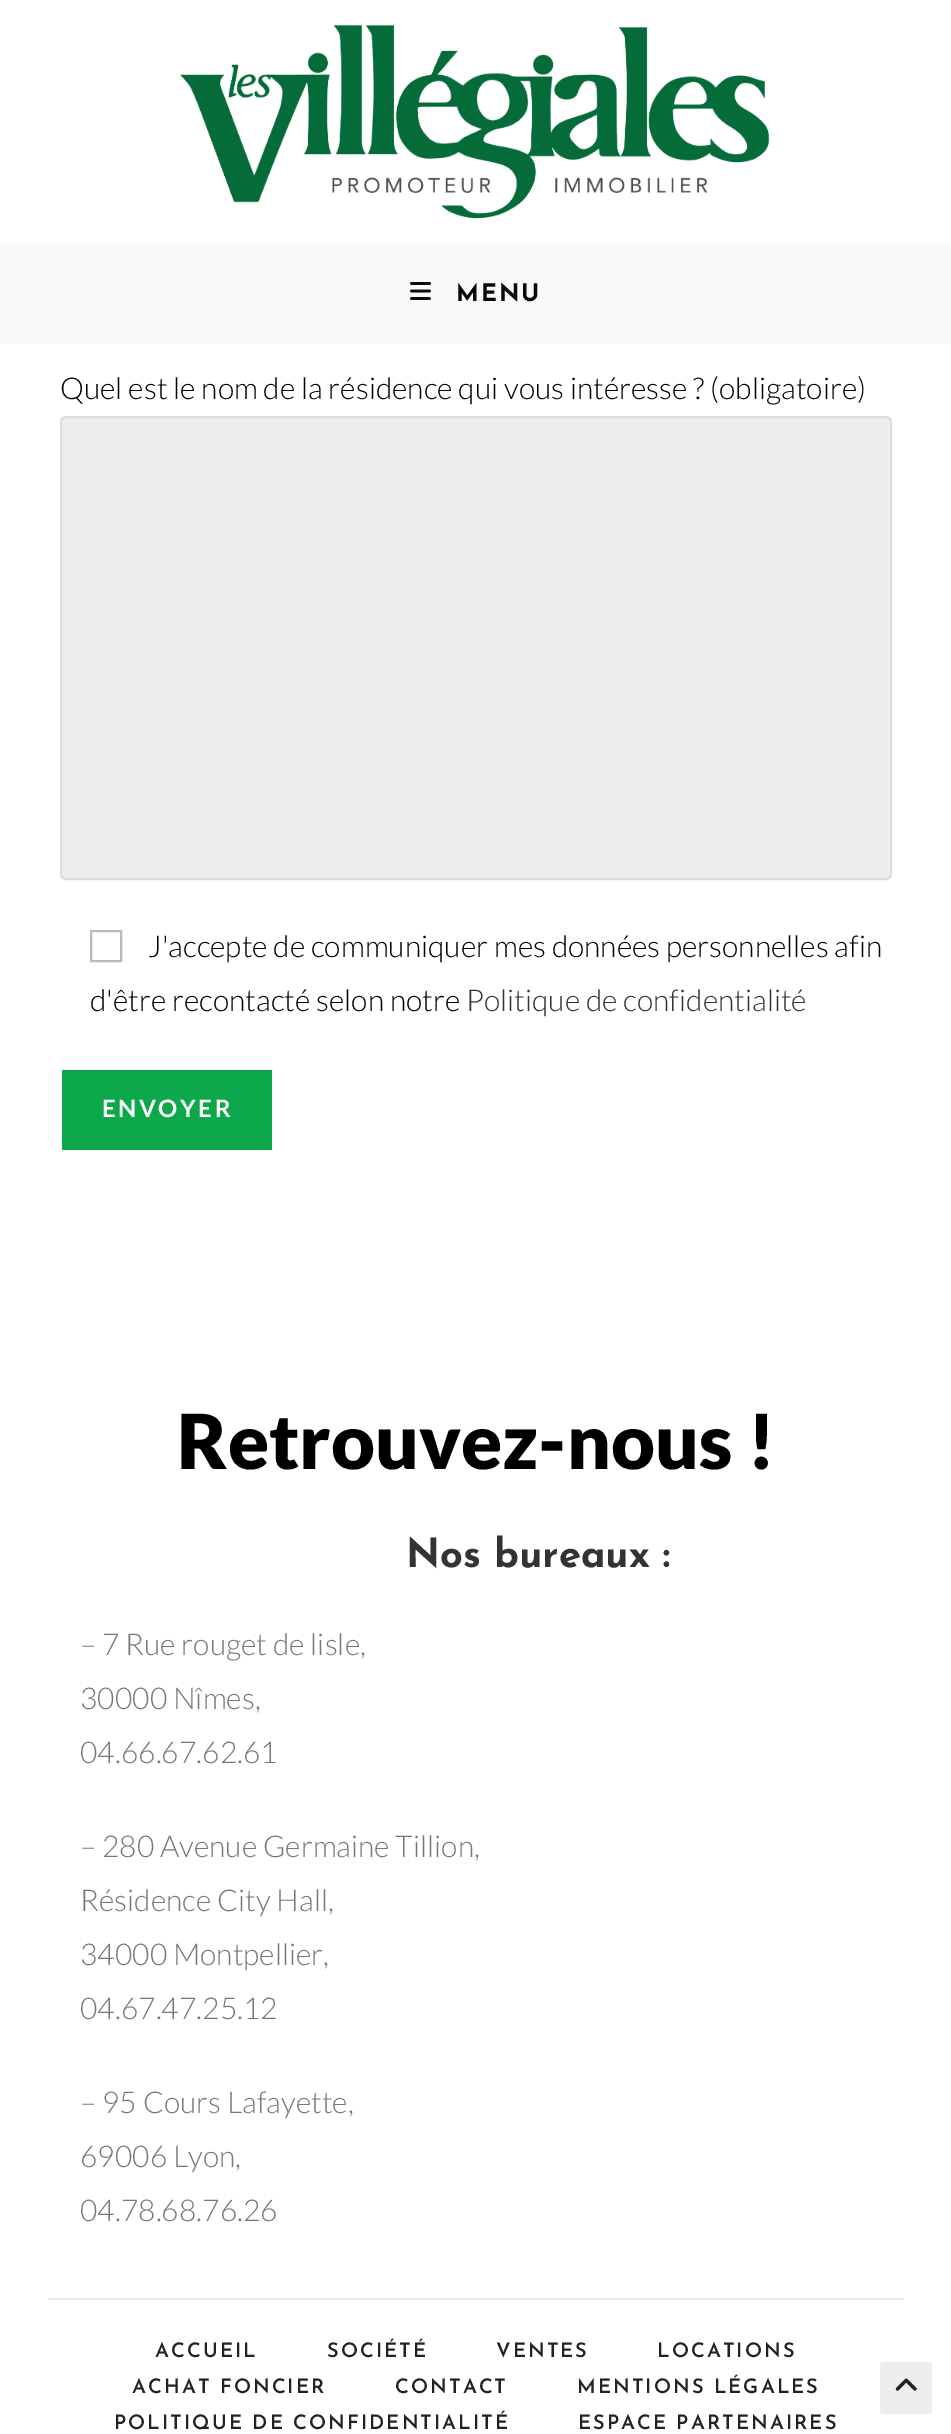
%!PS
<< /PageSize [951 2434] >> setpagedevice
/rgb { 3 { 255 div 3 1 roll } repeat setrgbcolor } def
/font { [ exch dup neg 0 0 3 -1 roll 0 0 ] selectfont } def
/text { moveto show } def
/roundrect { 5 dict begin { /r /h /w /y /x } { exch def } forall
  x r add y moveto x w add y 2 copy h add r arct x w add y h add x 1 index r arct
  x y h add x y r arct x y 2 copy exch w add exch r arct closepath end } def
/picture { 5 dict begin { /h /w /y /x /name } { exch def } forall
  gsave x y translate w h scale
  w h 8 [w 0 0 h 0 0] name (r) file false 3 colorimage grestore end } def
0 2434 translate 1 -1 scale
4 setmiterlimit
255 255 255 rgb
0 0 951 2434 rectfill
(img_01.rgb) 180 24 590 195 picture
249 249 249 rgb
0 244 951 100 rectfill
(img_02.rgb) 410 282 21 18 picture
237 237 237 rgb
61 417 830 462 5 roundrect gsave fill grestore
221 221 221 rgb
2 setlinewidth
stroke
187 187 187 rgb
91 931 30 30 rectstroke
13 168 75 rgb
62 1070 210 80 rectfill
234 234 234 rgb
48 2298 856 2 rectfill
238 238 238 rgb
880 2362 52 52 4 roundrect fill
(img_03.rgb) 895 2378 22 13 picture
/JosefinSans-Bold 24 font
10 10 10 rgb
456 301 moveto 2 0 (MENU) ashow
/Lato-Light 30 font
0 0 0 rgb
(Quel est le nom de la résidence qui vous intéresse ? \(obligatoire\)) 60 399 text
(J'accepte de communiquer mes données personnelles afin) 148 957 text
(d'être recontacté selon notre) 90 1011 text
51 51 51 rgb
(Politique de confidentialité) 466 1011 text
/Lato-Bold 24 font
255 255 255 rgb
102 1117 moveto 2.5 0 (ENVOYER) ashow
/Lato-Black 76 font
0 0 0 rgb
(Retrouvez-nous !) 177 1469 text
/JosefinSans-Bold 40 font
51 51 51 rgb
(Nos bureaux :) 406 1567 text
/Lato-Light 30 font
119 119 119 rgb
(– 7 Rue rouget de lisle,) 80 1655 text
(30000 Nîmes,) 80 1709 text
(04.66.67.62.61) 80 1763 text
(– 280 Avenue Germaine Tillion,) 80 1857 text
(Résidence City Hall,) 80 1911 text
(34000 Montpellier,) 80 1965 text
(04.67.47.25.12) 80 2019 text
(– 95 Cours Lafayette,) 80 2113 text
(69006 Lyon,) 80 2167 text
(04.78.68.76.26) 80 2221 text
/JosefinSans-SemiBold 20 font
34 34 34 rgb
155 2357 moveto 2 0 (ACCUEIL) ashow
327 2357 moveto 2 0 (SOCIÉTÉ) ashow
496 2357 moveto 2 0 (VENTES) ashow
657 2357 moveto 2 0 (LOCATIONS) ashow
132 2393 moveto 2 0 (ACHAT FONCIER) ashow
395 2393 moveto 2 0 (CONTACT) ashow
577 2393 moveto 2 0 (MENTIONS LÉGALES) ashow
114 2429 moveto 2 0 (POLITIQUE DE CONFIDENTIALITÉ) ashow
578 2429 moveto 2 0 (ESPACE PARTENAIRES) ashow
showpage
